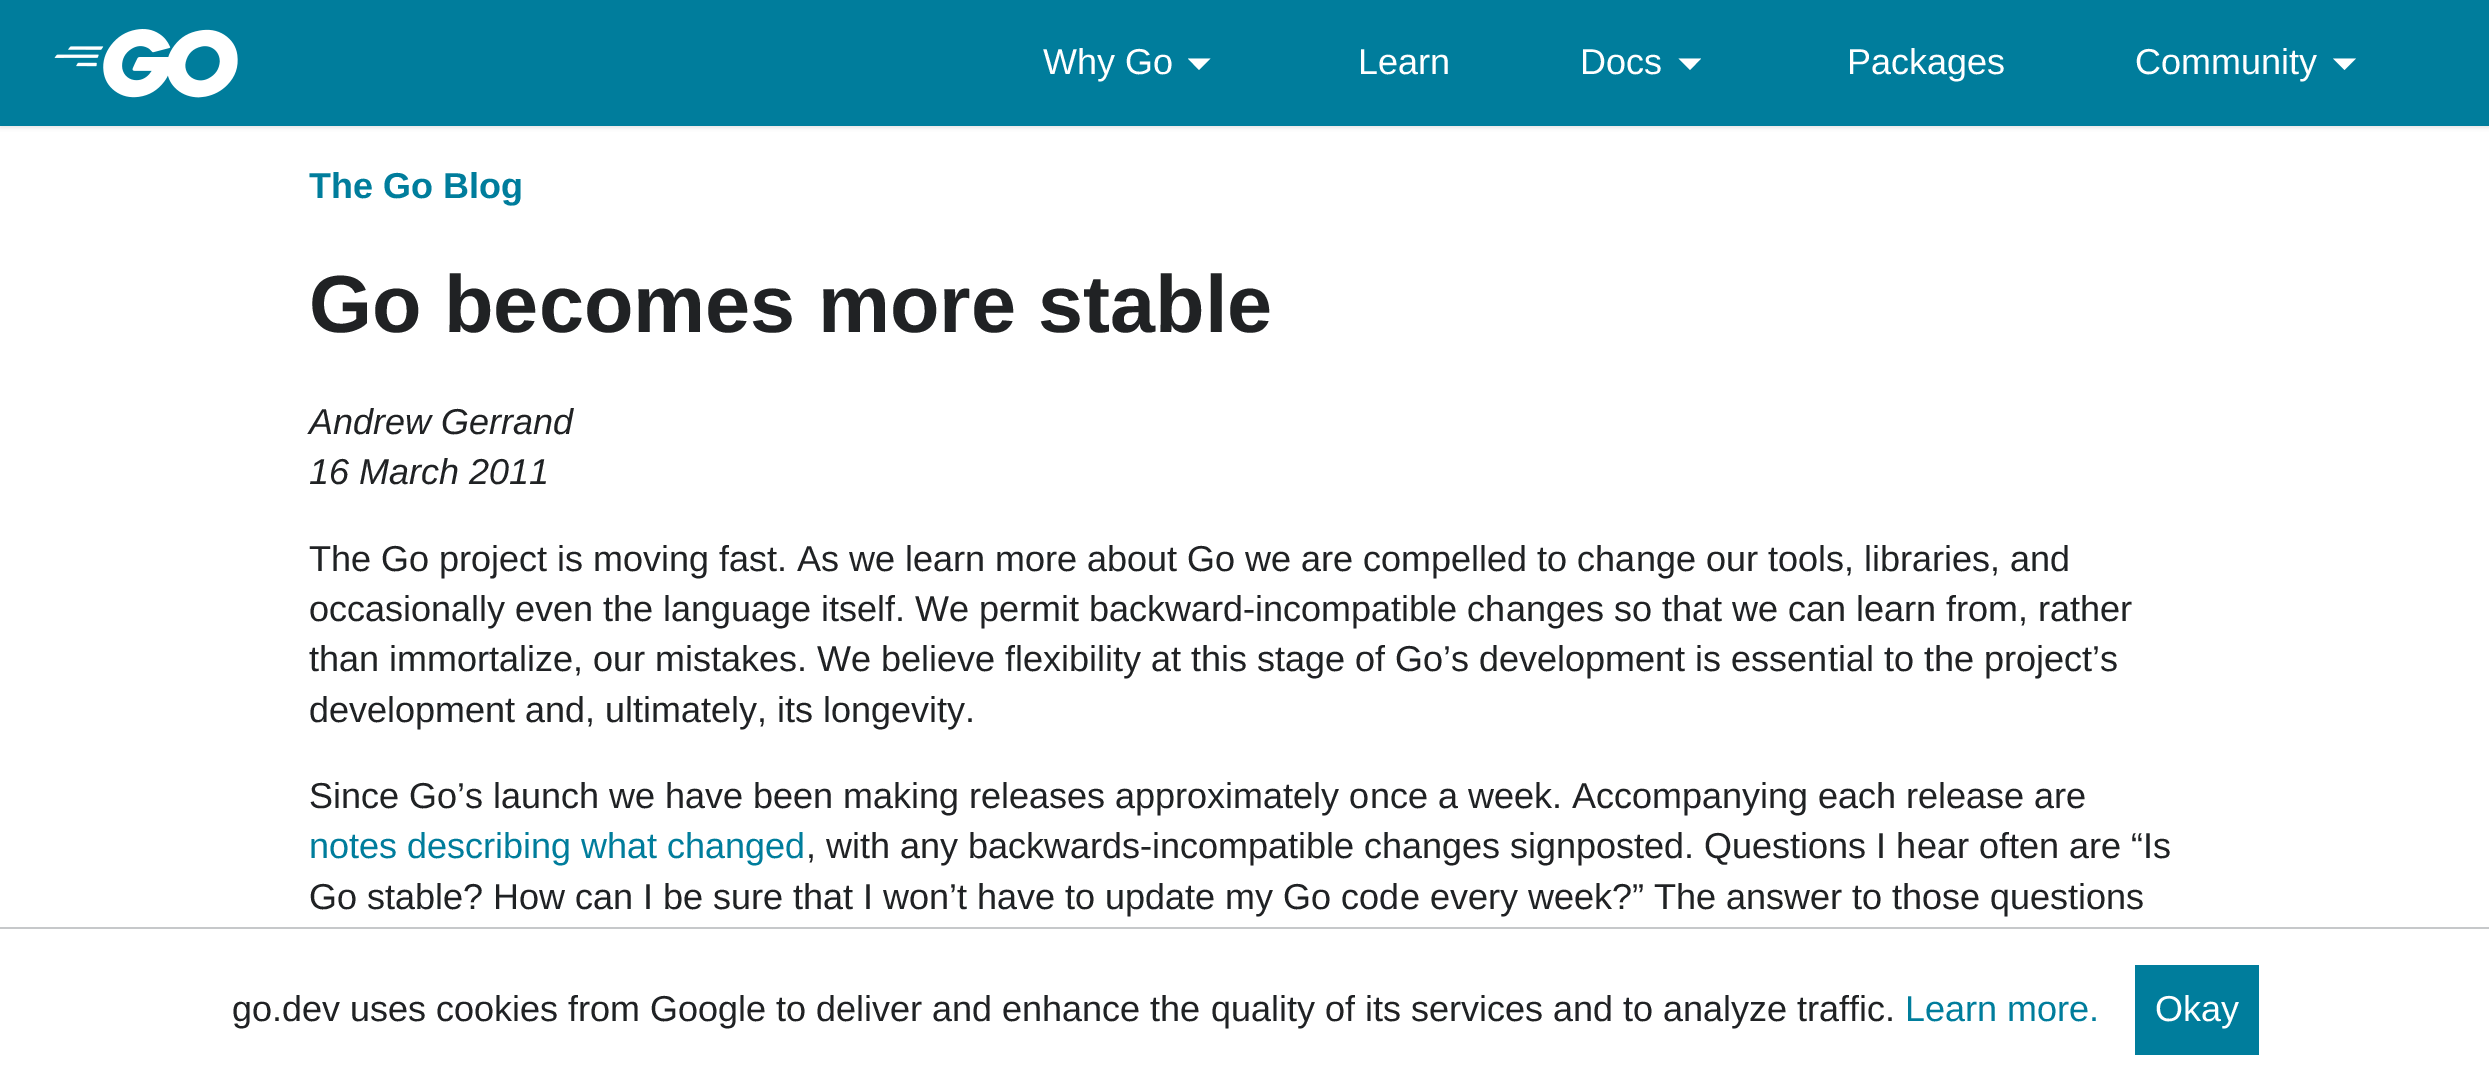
%!PS
<< /PageSize [2489 1090] /PageUsesTransparency true >> setpagedevice
/rgb { 3 { 255 div 3 1 roll } repeat setrgbcolor } def
/font { [ exch dup neg 0 0 3 -1 roll 0 0 ] selectfont } def
/text { moveto show } def
/alpha { dup .setfillconstantalpha .setstrokeconstantalpha } def
/roundrect { 5 dict begin { /r /h /w /y /x } { exch def } forall
  x r add y moveto x w add y 2 copy h add r arct x w add y h add x 1 index r arct
  x y h add x y r arct x y 2 copy exch w add exch r arct closepath end } def
/shadow { 12 dict begin { /a /b /q /h /w /y /x } { exch def } forall gsave /was 0 def
  9 -2 -9 { dup b mul 4 div /e exch def 1 sub .425 mul 2.718 exch exp 1 add a .99 .min exch div /now exch def
    1 1 now sub 1 was sub div sub alpha /was now def
    w h .min e 2 mul add 0 gt { x e sub y e sub w e 2 mul add h e 2 mul add
      q e add b .6 mul add w h .min 2 div e add .min 0 .max roundrect fill } if } for grestore end } def
/picture { 5 dict begin { /h /w /y /x /name } { exch def } forall
  gsave x y translate w h scale
  w h 8 [w 0 0 h 0 0] name (r) file false 3 colorimage grestore end } def
0 .pushpdf14devicefilter
0 1090 translate 1 -1 scale
4 setmiterlimit
255 255 255 rgb
0 0 2489 1090 rectfill
171 171 171 rgb
0 2 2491 126 0 2 0.3 shadow
0 125 156 rgb
0 0 2489 126 rectfill
(img_01.rgb) 54 29 184 69 picture
255 255 255 rgb
1188 58.5 moveto 22.5 0 rlineto -11.5 11.5 rlineto closepath fill
1678.5 58.5 moveto 22.5 0 rlineto -11 11.5 rlineto closepath fill
2333 58.5 moveto 23 0 rlineto -11.5 11.5 rlineto closepath fill
198 200 202 rgb
0 927 2489 2 rectfill
0 125 156 rgb
2135 965 124 90 rectfill
/LiberationSans-Regular 36 font
255 255 255 rgb
(Why Go) 1043 74 text
(Learn) 1358 74 text
(Docs) 1580 74 text
(Packages) 1847 74 text
(Community) 2135 74 text
/LiberationSans-Bold 36 font
0 125 156 rgb
(The Go Blog) 309 198 text
/LiberationSans-Bold 81 font
32 34 36 rgb
(Go becomes more stable) 309 332 text
/LiberationSans-Italic 36 font
(Andrew Gerrand) 309 434 text
(16 March 2011) 309 484 text
/LiberationSans-Regular 36 font
(The Go project is moving fast. As we learn more about Go we are compelled to change our tools, libraries, and) 309 571 text
(occasionally even the language itself. We permit backward-incompatible changes so that we can learn from, rather) 309 621 text
(than immortalize, our mistakes. We believe flexibility at this stage of Go’s development is essential to the project’s) 309 671 text
(development and, ultimately, its longevity.) 309 722 text
(Since Go’s launch we have been making releases approximately once a week. Accompanying each release are) 309 808 text
0 125 156 rgb
(notes describing what changed) 309 858 text
32 34 36 rgb
(, with any backwards-incompatible changes signposted. Questions I hear often are “Is) 806 858 text
(Go stable? How can I be sure that I won’t have to update my Go code every week?” The answer to those questions) 309 909 text
(go.dev uses cookies from Google to deliver and enhance the quality of its services and to analyze traffic.) 232 1021 text
0 125 156 rgb
(Learn more.) 1905 1021 text
255 255 255 rgb
(Okay) 2155 1021 text
.poppdf14devicefilter showpage
